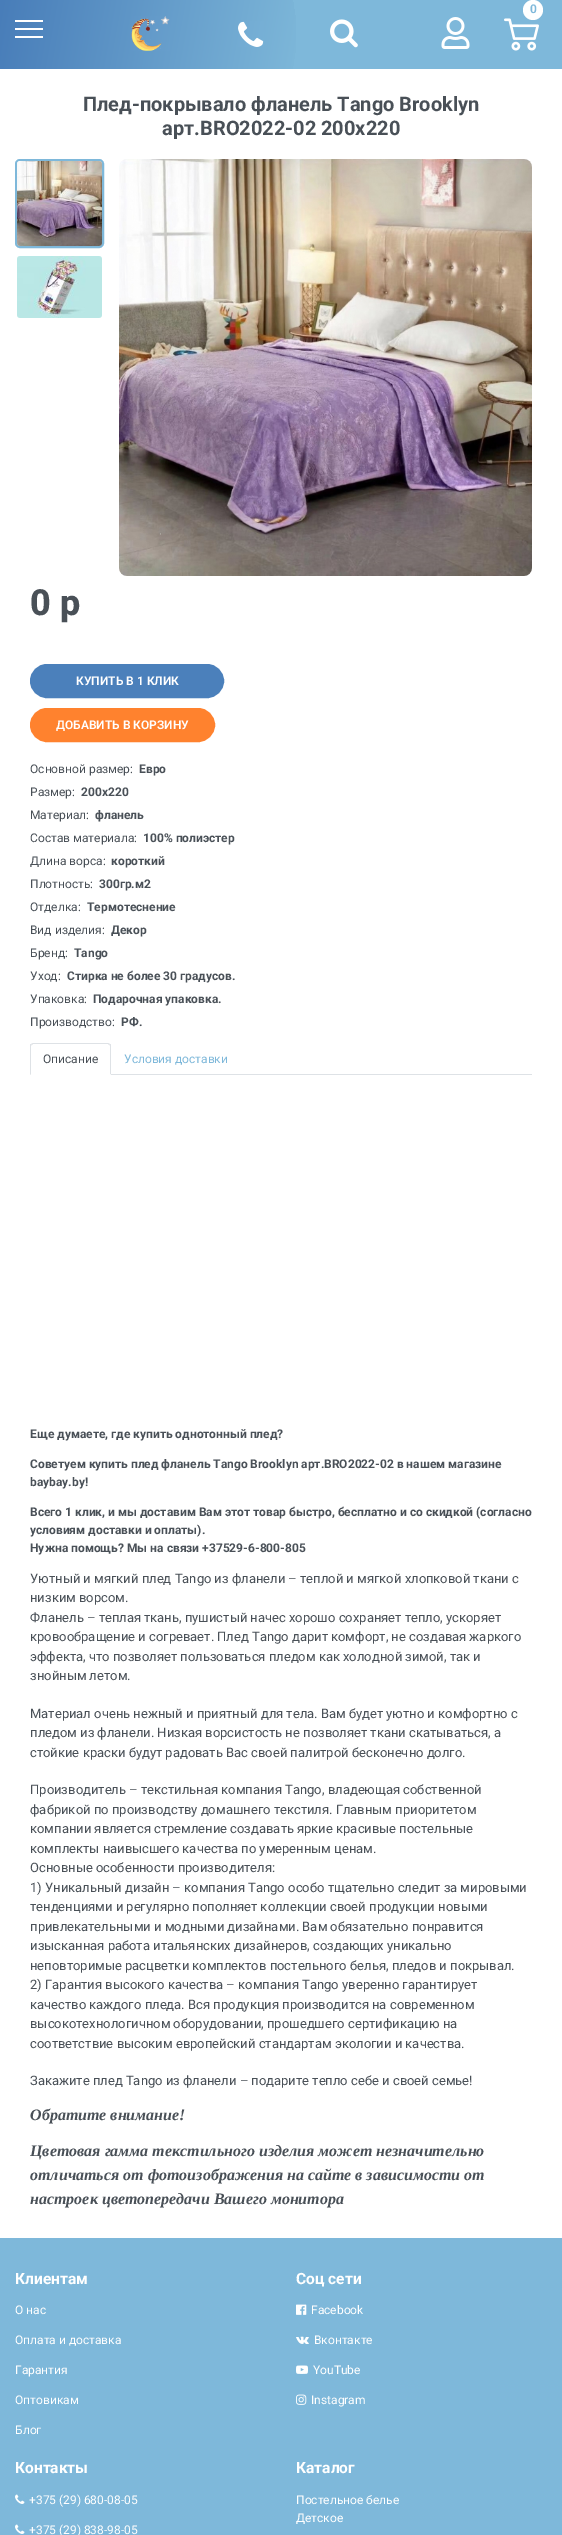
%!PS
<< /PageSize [562 2535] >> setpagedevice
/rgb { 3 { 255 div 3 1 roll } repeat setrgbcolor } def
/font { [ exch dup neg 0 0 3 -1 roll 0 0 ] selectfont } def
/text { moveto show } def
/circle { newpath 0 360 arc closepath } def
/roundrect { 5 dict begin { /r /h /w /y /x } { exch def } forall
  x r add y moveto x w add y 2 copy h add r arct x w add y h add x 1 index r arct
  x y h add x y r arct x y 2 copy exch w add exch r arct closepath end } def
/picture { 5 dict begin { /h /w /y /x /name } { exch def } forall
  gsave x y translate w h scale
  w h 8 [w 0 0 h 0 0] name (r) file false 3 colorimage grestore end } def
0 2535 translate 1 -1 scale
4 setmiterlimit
126 184 218 rgb
0 0 562 2535 rectfill
gsave
0 0 296 69 rectclip
gsave 126 34 170 circle clip newpath
<< /ShadingType 2 /ColorSpace /DeviceRGB /Coords [-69 12 300 79] /Extend [true true] /Function << /FunctionType 2 /Domain [0 1] /C0 [0.239 0.439 0.698] /C1 [0.494 0.722 0.855] /N 1 >> >> shfill grestore
grestore
(img_02.rgb) 504 18 35 33 picture
255 255 255 rgb
533 10 10 circle fill
(img_01.rgb) 441 17 29 32 picture
15 20 28 2 rectfill
15 28 28 2 rectfill
15 36 28 2 rectfill
(img_03.rgb) 131 16 39 35 picture
(img_04.rgb) 238 21 26 26 picture
(img_05.rgb) 330 19 28 29 picture
0 69 562 2169 rectfill
126 184 218 rgb
2 setlinewidth
16 160 87 87 4 roundrect stroke
(img_06.rgb) 17 161 85 85 picture
(img_07.rgb) 17 256 85 62 picture
(img_08.rgb) 119 159 413 417 picture
75 128 187 rgb
31 665 192 32 16 roundrect gsave fill grestore
stroke
255 130 46 rgb
31 709 183 32 16 roundrect gsave fill grestore
stroke
222 226 230 rgb
111 1074 421 1 rectfill
33 1043 moveto -2 1 rlineto 1 1 rlineto 1 -1 rlineto 75 0 rlineto 1 1 rlineto 1 -1 rlineto -2 -1 rlineto closepath fill
111 1075 moveto 0 -29 rlineto 0 -1 0 -2 -1 -2 rcurveto -0.5 0.5 rlineto 0.5 1.5 rlineto 0 28 rlineto closepath fill
255 255 255 rgb
111 1075 moveto -1 -1 rlineto -79 0 rlineto -1 1 rlineto closepath fill
222 226 230 rgb
30 1075 moveto 1 -1 rlineto 0 -28 rlineto 0.5 -1.5 rlineto -0.5 -0.5 rlineto -1 0 -1 1 -1 2 rcurveto closepath fill
(img_09.rgb) 296 2304 11 11 picture
(img_10.rgb) 296 2336 13 8 picture
(img_11.rgb) 296 2365 12 9 picture
(img_12.rgb) 296 2394 11 11 picture
(img_13.rgb) 15 2494 10 10 picture
(img_13.rgb) 15 2524 10 10 picture
/Roboto-SemiBold 12 font
126 184 218 rgb
(0) 530 13 text
/Roboto-Bold 20 font
73 80 87 rgb
(Плед-покрывало фланель Tango Brooklyn) 83 111 text
(арт.BRO2022-02 200х220) 162 135 text
/Roboto-ExtraBold 36 font
(0 p) 30 615 text
/Roboto-SemiBold 12 font
255 255 255 rgb
(КУПИТЬ В 1 КЛИК) 76 685 text
(ДОБАВИТЬ В КОРЗИНУ) 56 729 text
/Roboto-Regular 12 font
73 80 87 rgb
(Основной размер:) 30 773 text
/Roboto-Bold 12 font
(Евро) 139 773 text
/Roboto-Regular 12 font
(Размер:) 30 796 text
/Roboto-Bold 12 font
(200х220) 81 796 text
/Roboto-Regular 12 font
(Материал:) 30 819 text
/Roboto-Bold 12 font
(фланель) 95 819 text
/Roboto-Regular 12 font
(Состав материала:) 30 842 text
/Roboto-Bold 12 font
(100% полиэстер) 143 842 text
/Roboto-Regular 12 font
(Длина ворса:) 30 865 text
/Roboto-Bold 12 font
(короткий) 111 865 text
/Roboto-Regular 12 font
(Плотность:) 30 888 text
/Roboto-Bold 12 font
(300гр.м2) 99 888 text
/Roboto-Regular 12 font
(Отделка:) 30 911 text
/Roboto-Bold 12 font
(Термотеснение) 87 911 text
/Roboto-Regular 12 font
(Вид изделия:) 30 934 text
/Roboto-Bold 12 font
(Декор) 111 934 text
/Roboto-Regular 12 font
(Бренд:) 30 957 text
/Roboto-Bold 12 font
(Tango) 74 957 text
/Roboto-Regular 12 font
(Уход:) 30 980 text
/Roboto-Bold 12 font
(Стирка не более 30 градусов.) 67 980 text
/Roboto-Regular 12 font
(Упаковка:) 30 1003 text
/Roboto-Bold 12 font
(Подарочная упаковка.) 93 1003 text
/Roboto-Regular 12 font
(Производство:) 30 1026 text
/Roboto-Bold 12 font
(РФ.) 121 1026 text
/Roboto-Regular 12 font
(Описание) 43 1063 text
126 184 218 rgb
(Условия доставки) 124 1063 text
/Roboto-Bold 12 font
73 80 87 rgb
(Еще думаете, где купить однотонный плед?) 30 1438 text
(Советуем купить плед фланель Tango Brooklyn арт.BRO2022-02 в нашем магазине) 30 1468 text
(baybay.by!) 30 1486 text
(Всего 1 клик, и мы доставим Вам этот товар быстро, бесплатно и со скидкой \(согласно) 30 1516 text
(условиям доставки и оплаты\).) 30 1534 text
(Нужна помощь? Мы на связи +37529-6-800-805) 30 1552 text
/Roboto-Regular 13 font
(Уютный и мягкий плед Tango из фланели – теплой и мягкой хлопковой ткани с) 30 1583 text
(низким ворсом.) 30 1602 text
(Фланель – теплая ткань, пушистый начес хорошо сохраняет тепло, ускоряет) 30 1622 text
(кровообращение и согревает. Плед Tango дарит комфорт, не создавая жаркого) 30 1641 text
(эффекта, что позволяет пользоваться пледом как холодной зимой, так и) 30 1661 text
(знойным летом.) 30 1680 text
(Материал очень нежный и приятный для тела. Вам будет уютно и комфортно с) 30 1718 text
(пледом из фланели. Низкая ворсистость не позволяет ткани скатываться, а) 30 1737 text
(стойкие краски будут радовать Вас своей палитрой бесконечно долго.) 30 1757 text
(Производитель – текстильная компания Tango, владеющая собственной) 30 1794 text
(фабрикой по производству домашнего текстиля. Главным приоритетом) 30 1814 text
(компании является стремление создавать яркие красивые постельные) 30 1833 text
(комплекты наивысшего качества по умеренным ценам.) 30 1853 text
(Основные особенности производителя:) 30 1872 text
(1\) Уникальный дизайн – компания Tango особо тщательно следит за мировыми) 30 1892 text
(тенденциями и регулярно пополняет коллекции своей продукции новыми) 30 1911 text
(привлекательными и модными дизайнами. Вам обязательно понравится) 30 1931 text
(изысканная работа итальянских дизайнеров, создающих уникально) 30 1950 text
(неповторимые расцветки комплектов постельного белья, пледов и покрывал.) 30 1970 text
(2\) Гарантия высокого качества – компания Tango уверенно гарантирует) 30 1989 text
(качество каждого пледа. Вся продукция производится на современном) 30 2009 text
(высокотехнологичном оборудовании, прошедшего сертификацию на) 30 2028 text
(соответствие высоким европейский стандартам экологии и качества.) 30 2048 text
(Закажите плед Tango из фланели – подарите тепло себе и своей семье!) 30 2085 text
/LiberationSerif-BoldItalic 16 font
(Обратите внимание!) 30 2120 text
(Цветовая гамма текстильного изделия может незначительно) 30 2156 text
(отличаться от фотоизображения на сайте в зависимости от) 30 2180 text
(настроек цветопередачи Вашего монитора) 30 2204 text
/Roboto-Bold 15.5 font
255 255 255 rgb
(Клиентам) 15 2284 text
/Roboto-Regular 12 font
(О нас) 15 2314 text
(Оплата и доставка) 15 2344 text
(Гарантия) 15 2374 text
(Оптовикам) 15 2404 text
(Блог) 15 2434 text
/Roboto-Bold 15.5 font
(Соц сети) 296 2284 text
/Roboto-Regular 12 font
(Facebook) 311 2314 text
(Вконтакте) 314 2344 text
(YouTube) 313 2374 text
(Instagram) 311 2404 text
/Roboto-Bold 15.5 font
(Контакты) 15 2473 text
/Roboto-Regular 12 font
(+375 \(29\) 680-08-05) 29 2504 text
(+375 \(29\) 838-98-05) 29 2534 text
/Roboto-Bold 15.5 font
(Каталог) 296 2473 text
/Roboto-Regular 12 font
(Постельное белье) 296 2504 text
(Детское) 296 2522 text
showpage
